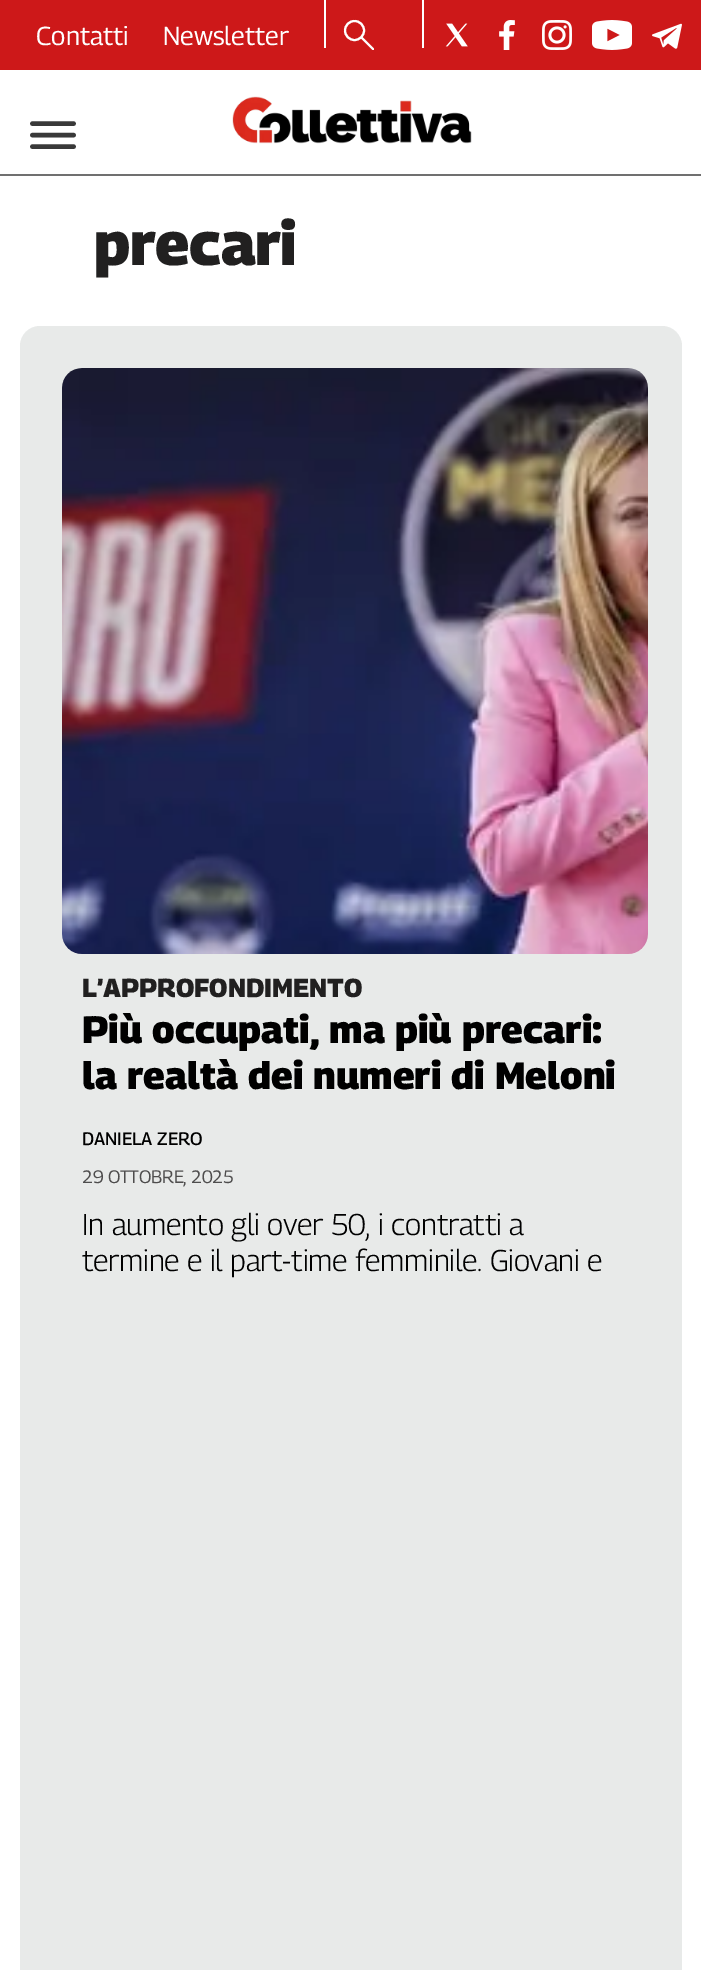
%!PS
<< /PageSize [701 1970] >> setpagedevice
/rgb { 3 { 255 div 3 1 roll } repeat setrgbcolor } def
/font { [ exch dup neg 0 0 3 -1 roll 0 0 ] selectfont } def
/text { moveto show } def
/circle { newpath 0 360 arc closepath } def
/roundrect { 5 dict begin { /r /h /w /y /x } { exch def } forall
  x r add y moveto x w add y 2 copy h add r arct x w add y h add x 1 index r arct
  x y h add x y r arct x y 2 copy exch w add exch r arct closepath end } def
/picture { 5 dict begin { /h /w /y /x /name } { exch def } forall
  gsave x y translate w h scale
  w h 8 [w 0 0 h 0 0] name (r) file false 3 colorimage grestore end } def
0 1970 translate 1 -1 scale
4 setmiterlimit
255 255 255 rgb
0 0 701 1970 rectfill
205 24 25 rgb
0 0 701 70 rectfill
255 255 255 rgb
324 0 2 48 rectfill
2.1 setlinewidth
354.5 30.5 9.5 circle stroke
gsave
344 20 30 30 rectclip
1 setlinecap
362 38 moveto 12 12 rlineto stroke
grestore
422 0 2 48 rectfill
(img_01.rgb) 445 23 23 24 picture
(img_02.rgb) 499 20 16 30 picture
(img_03.rgb) 542 20 30 30 picture
(img_04.rgb) 592 20 40 30 picture
(img_05.rgb) 652 23 30 26 picture
(img_06.rgb) 232 96 240 48 picture
57 57 57 rgb
4.6 setlinewidth
1 setlinecap
32.5 123.5 moveto 41 0 rlineto 32.5 135 moveto 41 0 rlineto 32.5 146.5 moveto 41 0 rlineto stroke
112 112 112 rgb
0 174 701 2 rectfill
232 234 233 rgb
20 326 662 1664 20 roundrect fill
(img_07.rgb) 62 368 586 586 picture
/Georama-Regular 26 font
255 255 255 rgb
(Contatti) 36 45 text
(Newsletter) 163 45 text
/Georama-ExtraBold 60 font
33 32 32 rgb
94 265 moveto -0.5 0 (precari) ashow
/Georama-ExtraBold 26 font
(L’APPROFONDIMENTO) 82 997 text
/Georama-ExtraBold 38 font
0 0 0 rgb
(Più occupati, ma più precari:) 82 1043 text
(la realtà dei numeri di Meloni) 82 1089 text
/Georama-Medium 18 font
(DANIELA ZERO) 82 1145 text
/Georama-Regular 18 font
78 77 77 rgb
82 1183 moveto -0.2 0 (29 OTTOBRE, 2025) ashow
/Georama-Light 30 font
0 0 0 rgb
82 1235 moveto -0.3 0 (In aumento gli over 50, i contratti a) ashow
82 1271 moveto -0.3 0 (termine e il part-time femminile. Giovani e) ashow
showpage
